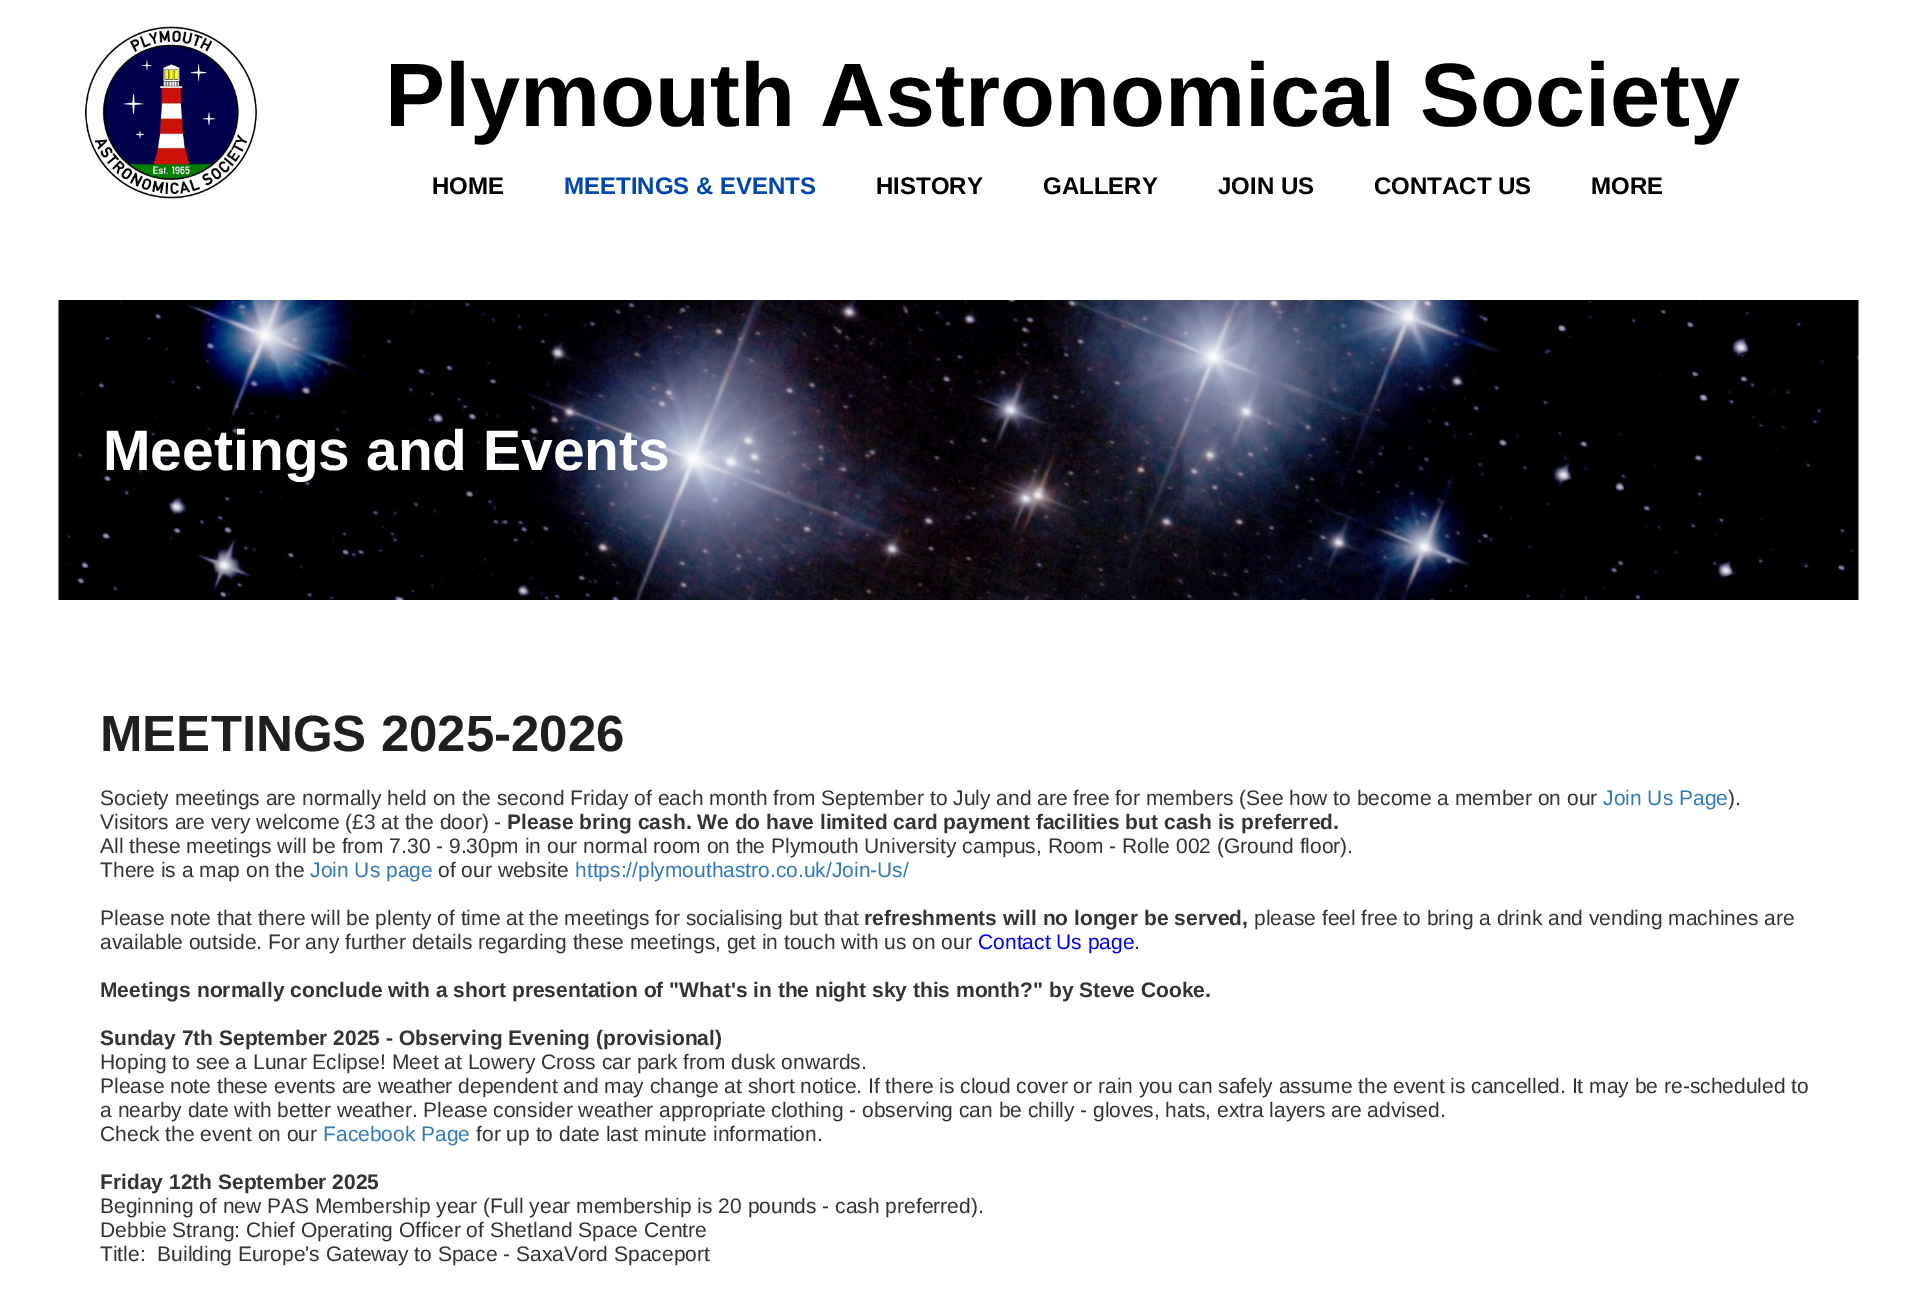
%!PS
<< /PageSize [1915 1290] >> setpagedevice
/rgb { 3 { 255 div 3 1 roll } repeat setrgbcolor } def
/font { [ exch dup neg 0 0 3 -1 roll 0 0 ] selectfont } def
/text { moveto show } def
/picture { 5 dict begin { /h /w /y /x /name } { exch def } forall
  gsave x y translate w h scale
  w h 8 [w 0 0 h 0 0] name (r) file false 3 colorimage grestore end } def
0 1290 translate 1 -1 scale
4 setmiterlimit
255 255 255 rgb
0 0 1915 1290 rectfill
(img_01.rgb) 85 26 172 173 picture
(img_02.rgb) 58 300 1801 300 picture
/LiberationSans-Bold 90 font
0 0 0 rgb
(Plymouth Astronomical Society) 385 126 text
/LiberationSans-Bold 24 font
(HOME) 432 194 text
0 71 171 rgb
(MEETINGS & EVENTS) 564 194 text
0 0 0 rgb
(HISTORY) 876 194 text
(GALLERY) 1043 194 text
(JOIN US) 1218 194 text
(CONTACT US) 1374 194 text
(MORE) 1591 194 text
/LiberationSans-Bold 57 font
255 255 255 rgb
(Meetings and Events) 103 470 text
/LiberationSans-Bold 51 font
31 31 31 rgb
(MEETINGS 2025-2026) 100 751 text
/LiberationSans-Regular 21 font
51 51 51 rgb
(Society meetings are normally held on the second Friday of each month from September to July and are free for members \(See how to become a member on our) 100 805 text
51 122 183 rgb
(Join Us Page) 1603 805 text
51 51 51 rgb
(\).) 1728 805 text
(Visitors are very welcome \(£3 at the door\) -) 100 829 text
/LiberationSans-Bold 21 font
(Please bring cash. We do have limited card payment facilities but cash is preferred.) 507 829 text
/LiberationSans-Regular 21 font
(All these meetings will be from 7.30 - 9.30pm in our normal room on the Plymouth University campus, Room - Rolle 002 \(Ground floor\).) 100 853 text
(There is a map on the) 100 877 text
51 122 183 rgb
(Join Us page) 310 877 text
51 51 51 rgb
(of our website) 438 877 text
51 122 183 rgb
(https://plymouthastro.co.uk/Join-Us/) 575 877 text
51 51 51 rgb
(Please note that there will be plenty of time at the meetings for socialising but that) 100 925 text
/LiberationSans-Bold 21 font
(refreshments will no longer be served,) 864 925 text
/LiberationSans-Regular 21 font
(please feel free to bring a drink and vending machines are) 1254 925 text
(available outside. For any further details regarding these meetings, get in touch with us on our) 100 949 text
0 0 238 rgb
(Contact Us page) 978 949 text
51 51 51 rgb
(.) 1134 949 text
/LiberationSans-Bold 21 font
(Meetings normally conclude with a short presentation of "What's in the night sky this month?" by Steve Cooke.) 100 997 text
(Sunday 7th September 2025 - Observing Evening \(provisional\)) 100 1045 text
/LiberationSans-Regular 21 font
(Hoping to see a Lunar Eclipse! Meet at Lowery Cross car park from dusk onwards.) 100 1069 text
(Please note these events are weather dependent and may change at short notice. If there is cloud cover or rain you can safely assume the event is cancelled. It may be re-scheduled to) 100 1093 text
(a nearby date with better weather. Please consider weather appropriate clothing - observing can be chilly - gloves, hats, extra layers are advised.) 100 1117 text
(Check the event on our) 100 1141 text
51 122 183 rgb
(Facebook Page) 323 1141 text
51 51 51 rgb
(for up to date last minute information.) 476 1141 text
/LiberationSans-Bold 21 font
(Friday 12th September 2025) 100 1189 text
/LiberationSans-Regular 21 font
(Beginning of new PAS Membership year \(Full year membership is 20 pounds - cash preferred\).) 100 1213 text
(Debbie Strang: Chief Operating Officer of Shetland Space Centre) 100 1237 text
(Title:  Building Europe's Gateway to Space - SaxaVord Spaceport) 100 1261 text
showpage
